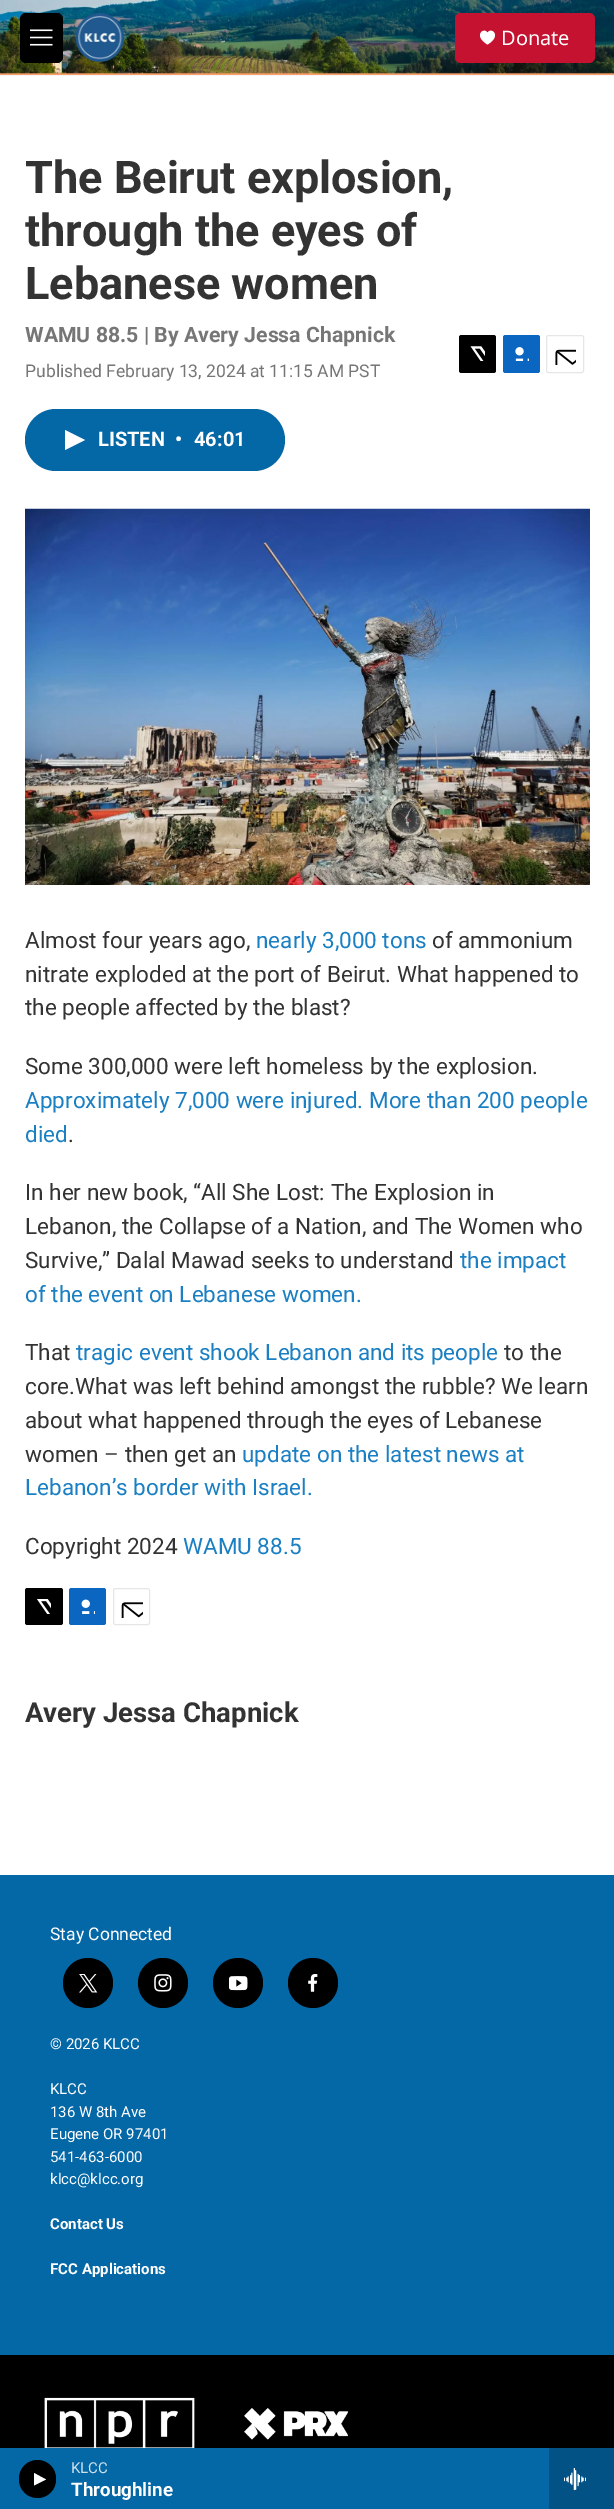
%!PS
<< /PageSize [614 2509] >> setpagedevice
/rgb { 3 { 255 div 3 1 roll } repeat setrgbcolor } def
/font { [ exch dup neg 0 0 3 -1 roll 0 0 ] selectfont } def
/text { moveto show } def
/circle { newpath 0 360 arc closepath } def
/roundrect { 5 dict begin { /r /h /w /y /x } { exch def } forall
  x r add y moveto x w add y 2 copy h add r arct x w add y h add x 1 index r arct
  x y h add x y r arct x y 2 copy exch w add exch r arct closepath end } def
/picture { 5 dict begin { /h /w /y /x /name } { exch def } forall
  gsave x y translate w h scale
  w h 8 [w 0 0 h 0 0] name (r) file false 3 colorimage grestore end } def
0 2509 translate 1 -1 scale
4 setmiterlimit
255 255 255 rgb
0 0 614 2509 rectfill
245 245 245 rgb
0 75 614 1 rectfill
(img_01.rgb) 0 0 614 75 picture
0 0 0 rgb
20 13 43 50 6 roundrect fill
(img_02.rgb) 30 29 23 17 picture
(img_03.rgb) 74 12 51 51 picture
196 18 48 rgb
455 13 140 50 6 roundrect fill
255 255 255 rgb
487.5 33 moveto -2.5 -6.5 -15.5 2 0 11.5 rcurveto 15.5 -9.5 2.5 -18 0 -11.5 rcurveto closepath fill
4 103 166 rgb
0 2448 549 61 rectfill
0 0 0 rgb
19 2460 37 38 18.5 roundrect fill
255 255 255 rgb
34 2473 moveto 12 6.5 rlineto -12 6 rlineto closepath fill
3 82 133 rgb
549 2448 65 61 rectfill
(img_04.rgb) 564 2468 22 22 picture
0 0 0 rgb
459 335 37 38 2.5 roundrect fill
(img_05.rgb) 470 346 15 15 picture
10 102 193 rgb
503 335 37 38 2.5 roundrect fill
(img_06.rgb) 515 347 14 14 picture
230 230 230 rgb
546.5 335.5 37 37 2 roundrect stroke
(img_07.rgb) 555 349 21 16 picture
4 103 166 rgb
25 409 260 62 31 roundrect fill
255 255 255 rgb
65 430 moveto 20 10 rlineto -20 10 rlineto closepath fill
(img_08.rgb) 25 508 565 377 picture
0 0 0 rgb
25 1588 38 37 2.5 roundrect fill
(img_09.rgb) 37 1599 14 15 picture
10 102 193 rgb
69 1588 37 37 2.5 roundrect fill
(img_10.rgb) 81 1599 14 15 picture
230 230 230 rgb
113.5 1588.5 36 36 2 roundrect stroke
(img_11.rgb) 121 1602 22 16 picture
4 103 166 rgb
0 1875 614 480 rectfill
0 0 0 rgb
88 1983 25 circle fill
(img_12.rgb) 79 1974 19 19 picture
163 1983 25 circle fill
(img_13.rgb) 154 1974 18 18 picture
238 1983 25 circle fill
(img_14.rgb) 229 1976 19 15 picture
313 1983 25 circle fill
(img_15.rgb) 308 1974 10 18 picture
0 2355 614 93 rectfill
(img_16.rgb) 44 2397 151 51 picture
(img_17.rgb) 244 2408 105 32 picture
/NotoSans-Regular 20 font
255 255 255 rgb
(Donate) 501 45 text
/Roboto-Regular 15 font
205 225 237 rgb
(KLCC) 71 2473 text
/Roboto-Bold 18.75 font
255 255 255 rgb
(Throughline) 71 2496 text
/Roboto-Bold 45 font
51 51 51 rgb
(The Beirut explosion,) 25 193 text
(through the eyes of) 25 246 text
(Lebanese women) 25 299 text
/Roboto-Bold 21.25 font
118 118 118 rgb
(WAMU 88.5 | By Avery Jessa Chapnick) 25 342 text
/Roboto-Regular 17.5 font
(Published February 13, 2024 at 11:15 AM PST) 25 377 text
/Roboto-Bold 20 font
255 255 255 rgb
(LISTEN) 98 446 text
(•) 175 446 text
(46:01) 194 446 text
/Roboto-Regular 22.5 font
51 51 51 rgb
(Almost four years ago,) 25 948 text
26 127 195 rgb
(nearly 3,000 tons) 256 948 text
51 51 51 rgb
(of ammonium) 432 948 text
(nitrate exploded at the port of Beirut. What happened to) 25 982 text
(the people affected by the blast?) 25 1015 text
(Some 300,000 were left homeless by the explosion.) 25 1074 text
26 127 195 rgb
(Approximately 7,000 were injured. More than 200 people) 25 1108 text
(died) 25 1142 text
51 51 51 rgb
(.) 68 1142 text
(In her new book, “All She Lost: The Explosion in) 25 1200 text
(Lebanon, the Collapse of a Nation, and The Women who) 25 1234 text
(Survive,” Dalal Mawad seeks to understand) 25 1268 text
26 127 195 rgb
(the impact) 460 1268 text
(of the event on Lebanese women.) 25 1302 text
51 51 51 rgb
(That) 25 1360 text
26 127 195 rgb
(tragic event shook Lebanon and its people) 76 1360 text
51 51 51 rgb
(to the) 504 1360 text
(core.What was left behind amongst the rubble? We learn) 25 1394 text
(about what happened through the eyes of Lebanese) 25 1428 text
(women – then get an) 25 1462 text
26 127 195 rgb
(update on the latest news at) 242 1462 text
(Lebanon’s border with Israel.) 25 1495 text
51 51 51 rgb
(Copyright 2024) 25 1554 text
26 127 195 rgb
(WAMU 88.5) 183 1554 text
/Roboto-Bold 27.5 font
51 51 51 rgb
(Avery Jessa Chapnick) 25 1722 text
/Roboto-Regular 17.5 font
255 255 255 rgb
(Stay Connected) 50 1940 text
/Roboto-Regular 15 font
(© 2026 KLCC) 50 2049 text
(KLCC) 50 2094 text
(136 W 8th Ave) 50 2117 text
(Eugene OR 97401) 50 2139 text
(541-463-6000) 50 2162 text
(klcc@klcc.org) 50 2184 text
/Roboto-Bold 15 font
(Contact Us) 50 2229 text
(FCC Applications) 50 2274 text
showpage
